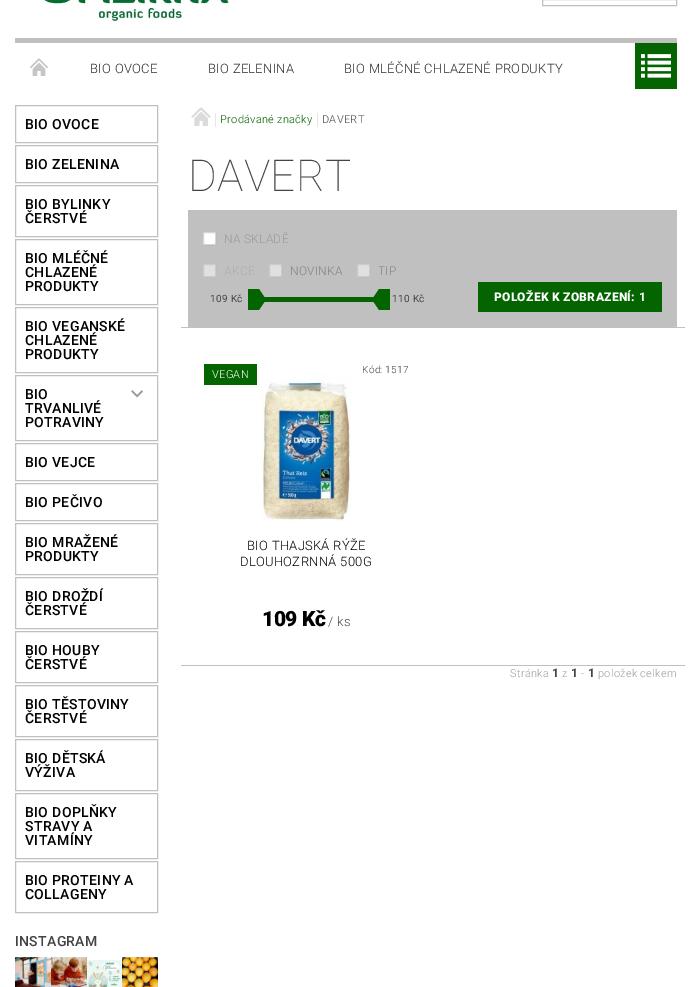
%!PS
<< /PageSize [692 987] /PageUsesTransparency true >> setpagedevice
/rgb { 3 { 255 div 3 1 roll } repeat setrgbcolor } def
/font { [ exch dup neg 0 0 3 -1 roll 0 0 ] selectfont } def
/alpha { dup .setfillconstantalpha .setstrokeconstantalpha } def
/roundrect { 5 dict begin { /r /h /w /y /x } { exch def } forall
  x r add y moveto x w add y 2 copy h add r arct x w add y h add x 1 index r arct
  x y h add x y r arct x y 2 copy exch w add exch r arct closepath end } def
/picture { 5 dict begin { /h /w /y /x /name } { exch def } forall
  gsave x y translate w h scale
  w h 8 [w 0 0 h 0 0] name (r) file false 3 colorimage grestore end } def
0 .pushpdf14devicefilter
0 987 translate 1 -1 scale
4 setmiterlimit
255 255 255 rgb
0 0 692 987 rectfill
(img_01.rgb) 44 0 186 22 picture
192 192 192 rgb
542.5 -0.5 134 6 rectstroke
15 38 662 5 rectfill
(img_02.rgb) 30 58 18 18 picture
3 100 0 rgb
635 43 42 46 rectfill
(img_03.rgb) 641 54 30 24 picture
192 192 192 rgb
15.5 105.5 142 37 rectstroke
15.5 145.5 142 37 rectstroke
15.5 185.5 142 51 rectstroke
15.5 239.5 142 65 rectstroke
15.5 307.5 142 65 rectstroke
15.5 375.5 142 65 rectstroke
(img_04.rgb) 131 390 12 8 picture
15.5 443.5 142 37 rectstroke
15.5 483.5 142 37 rectstroke
15.5 523.5 142 51 rectstroke
15.5 577.5 142 51 rectstroke
15.5 631.5 142 51 rectstroke
15.5 685.5 142 51 rectstroke
15.5 739.5 142 51 rectstroke
15.5 793.5 142 65 rectstroke
15.5 861.5 142 51 rectstroke
(img_05.rgb) 15 957 36 30 picture
(img_06.rgb) 51 957 36 30 picture
(img_07.rgb) 87 960 35 27 picture
(img_08.rgb) 122 957 36 30 picture
(img_09.rgb) 191 107 20 19 picture
231 231 231 rgb
215 113 1 14 rectfill
317 113 1 14 rectfill
192 192 192 rgb
188 210 489 117 rectfill
255 255 255 rgb
203 232 13 13 2 roundrect fill
0.3 alpha
118 118 118 rgb
203.5 232.5 12 12 1.5 roundrect stroke
1 alpha
224 224 224 rgb
203 264 13 13 2 roundrect fill
0.3 alpha
155 155 155 rgb
203.5 264.5 12 12 1.5 roundrect stroke
1 alpha
224 224 224 rgb
269 264 13 13 2 roundrect fill
0.3 alpha
155 155 155 rgb
269.5 264.5 12 12 1.5 roundrect stroke
1 alpha
224 224 224 rgb
357 264 13 13 2 roundrect fill
0.3 alpha
155 155 155 rgb
357.5 264.5 12 12 1.5 roundrect stroke
1 alpha
3 100 0 rgb
259 297 117 5 rectfill
259 310 moveto 0 -21 rlineto 6 9 rlineto 0 3 rlineto closepath fill
248 289 11 21 rectfill
379 289 moveto 0 21 rlineto -6 -9 rlineto 0 -3 rlineto closepath fill
379 289 11 21 rectfill
478 282 184 30 rectfill
192 192 192 rgb
181 327 504 1 rectfill
181 665 504 1 rectfill
3 100 0 rgb
204 364 53 21 rectfill
(img_10.rgb) 261 374 90 147 picture
/Roboto-Light 13 font
42 42 42 rgb
90 73 moveto 0.3 0 (BIO OVOCE) ashow
208 73 moveto 0.3 0 (BIO ZELENINA) ashow
344 73 moveto 0.3 0 (BIO MLÉČNÉ CHLAZENÉ PRODUKTY) ashow
/Roboto-Medium 14 font
0 0 0 rgb
25 129 moveto 0.3 0 (BIO OVOCE) ashow
25 169 moveto 0.3 0 (BIO ZELENINA) ashow
25 209 moveto 0.3 0 (BIO BYLINKY) ashow
25 223 moveto 0.3 0 (ČERSTVÉ) ashow
25 263 moveto 0.3 0 (BIO MLÉČNÉ) ashow
25 277 moveto 0.3 0 (CHLAZENÉ) ashow
25 291 moveto 0.3 0 (PRODUKTY) ashow
25 331 moveto 0.3 0 (BIO VEGANSKÉ) ashow
25 345 moveto 0.3 0 (CHLAZENÉ) ashow
25 359 moveto 0.3 0 (PRODUKTY) ashow
25 399 moveto 0.3 0 (BIO) ashow
25 413 moveto 0.3 0 (TRVANLIVÉ) ashow
25 427 moveto 0.3 0 (POTRAVINY) ashow
25 467 moveto 0.3 0 (BIO VEJCE) ashow
25 507 moveto 0.3 0 (BIO PEČIVO) ashow
25 547 moveto 0.3 0 (BIO MRAŽENÉ) ashow
25 561 moveto 0.3 0 (PRODUKTY) ashow
25 601 moveto 0.3 0 (BIO DROŽDÍ) ashow
25 615 moveto 0.3 0 (ČERSTVÉ) ashow
25 655 moveto 0.3 0 (BIO HOUBY) ashow
25 669 moveto 0.3 0 (ČERSTVÉ) ashow
25 709 moveto 0.3 0 (BIO TĚSTOVINY) ashow
25 723 moveto 0.3 0 (ČERSTVÉ) ashow
25 763 moveto 0.3 0 (BIO DĚTSKÁ) ashow
25 777 moveto 0.3 0 (VÝŽIVA) ashow
25 817 moveto 0.3 0 (BIO DOPLŇKY) ashow
25 831 moveto 0.3 0 (STRAVY A) ashow
25 845 moveto 0.3 0 (VITAMÍNY) ashow
25 885 moveto 0.3 0 (BIO PROTEINY A) ashow
25 899 moveto 0.3 0 (COLLAGENY) ashow
68 68 68 rgb
15 946 moveto 0.3 0 (INSTAGRAM) ashow
/Roboto-Light 11 font
3 100 0 rgb
220 123 moveto 0.3 0 (Prodávané značky) ashow
68 68 68 rgb
322 123 moveto 0.3 0 (DAVERT) ashow
/Roboto-Thin 44 font
188 191 moveto 0.3 0 (DAVERT) ashow
/Roboto-Light 12 font
153 153 153 rgb
224 243 moveto 0.3 0 (NA SKLADĚ) ashow
173 173 173 rgb
224 275 moveto 0.3 0 (AKCE) ashow
130 130 130 rgb
290 275 moveto 0.3 0 (NOVINKA) ashow
378 275 moveto 0.3 0 (TIP) ashow
/Roboto-Regular 10 font
68 68 68 rgb
210 302 moveto 0.3 0 (109 Kč) ashow
392 302 moveto 0.3 0 (110 Kč) ashow
/Roboto-Black 12 font
255 255 255 rgb
494 301 moveto 0.3 0 (POLOŽEK K ZOBRAZENÍ:) ashow
/Roboto-Bold 12 font
639 301 moveto 0.3 0 (1) ashow
/Roboto-Light 11 font
212 378 moveto 0.3 0 (VEGAN) ashow
/Roboto-Light 10 font
68 68 68 rgb
362 373 moveto 0.3 0 (Kód: 1517) ashow
/Roboto-Light 13 font
0 0 0 rgb
247 550 moveto 0.3 0 (BIO THAJSKÁ RÝŽE) ashow
240 566 moveto 0.3 0 (DLOUHOZRNNÁ 500G) ashow
/Roboto-Black 21 font
262 626 moveto -0.5 0 (109 Kč) ashow
/Roboto-Light 13 font
68 68 68 rgb
328 626 moveto 0.3 0 (/ ks) ashow
/Roboto-Light 11 font
160 160 160 rgb
510 677 moveto 0.3 0 (Stránka) ashow
/Roboto-Bold 12 font
68 68 68 rgb
552 677 moveto 0.3 0 (1) ashow
/Roboto-Light 11 font
160 160 160 rgb
562 677 moveto 0.3 0 (z) ashow
/Roboto-Bold 12 font
68 68 68 rgb
571 677 moveto 0.3 0 (1) ashow
/Roboto-Light 11 font
160 160 160 rgb
581 677 moveto 0.3 0 (-) ashow
/Roboto-Bold 12 font
68 68 68 rgb
588 677 moveto 0.3 0 (1) ashow
/Roboto-Light 11 font
160 160 160 rgb
598 677 moveto 0.3 0 (položek celkem) ashow
.poppdf14devicefilter showpage
